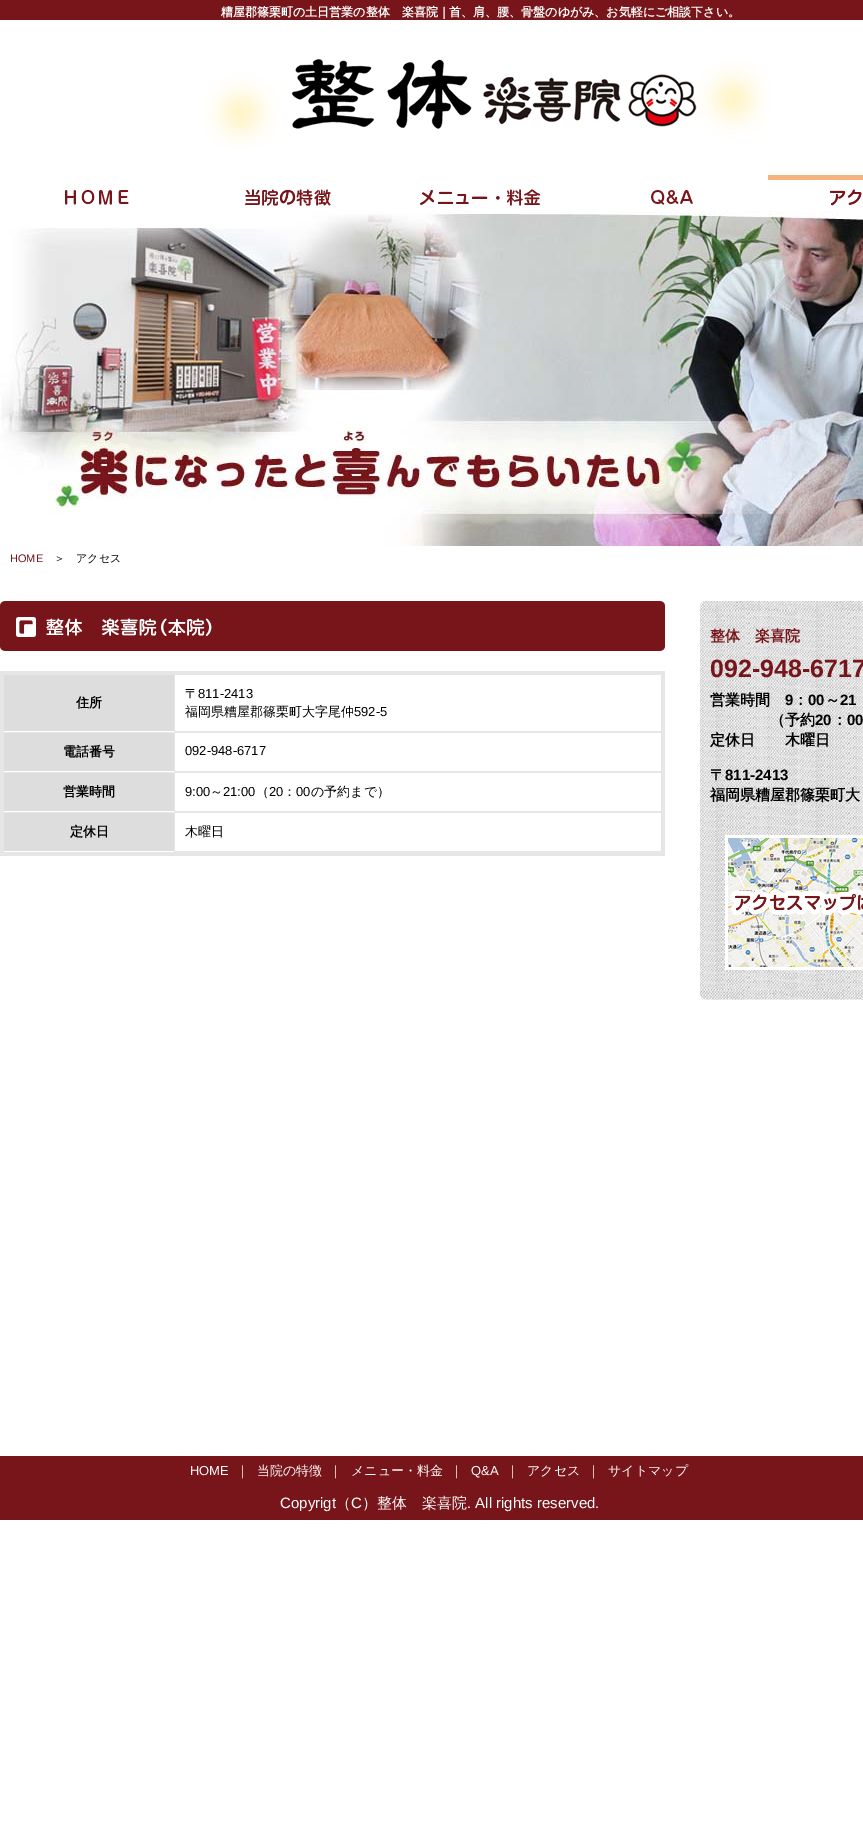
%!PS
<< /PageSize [863 1825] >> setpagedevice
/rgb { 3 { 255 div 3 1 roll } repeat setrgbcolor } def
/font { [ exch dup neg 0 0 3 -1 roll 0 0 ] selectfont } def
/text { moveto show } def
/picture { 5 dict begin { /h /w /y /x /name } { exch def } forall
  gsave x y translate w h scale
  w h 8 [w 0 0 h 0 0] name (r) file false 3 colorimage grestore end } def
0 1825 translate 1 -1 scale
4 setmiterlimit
255 255 255 rgb
0 0 863 1825 rectfill
(img_01.rgb) 0 0 863 211 picture
(img_02.rgb) 204 59 566 90 picture
(img_03.rgb) 65 189 64 16 picture
(img_04.rgb) 245 189 86 17 picture
(img_05.rgb) 420 189 120 17 picture
(img_06.rgb) 651 190 42 15 picture
(img_07.rgb) 768 175 95 31 picture
(img_08.rgb) 0 211 863 335 picture
(img_09.rgb) 0 601 665 50 picture
230 230 230 rgb
0 671 665 185 rectfill
221 221 221 rgb
4 675 170 56 rectfill
255 255 255 rgb
4 731 170 1 rectfill
175 675 486 56 rectfill
221 221 221 rgb
4 733 170 38 rectfill
255 255 255 rgb
4 771 170 1 rectfill
175 733 486 38 rectfill
221 221 221 rgb
4 773 170 38 rectfill
255 255 255 rgb
4 811 170 1 rectfill
175 773 486 38 rectfill
221 221 221 rgb
4 813 170 38 rectfill
255 255 255 rgb
4 851 170 1 rectfill
175 813 486 38 rectfill
(img_10.rgb) 700 601 163 10 picture
(img_11.rgb) 700 611 163 224 picture
(img_12.rgb) 700 835 163 155 picture
(img_13.rgb) 725 835 138 135 picture
(img_14.rgb) 700 990 163 10 picture
120 21 26 rgb
0 1456 863 64 rectfill
/WenQuanYiZenHei-Bold 12 font
255 255 255 rgb
(糟屋郡篠栗町の土日営業の整体　楽喜院｜首、肩、腰、骨盤のゆがみ、お気軽にご相談下さい。) 221 16 text
/LiberationSans-Regular 11 font
120 21 26 rgb
(HOME) 10 562 text
/WenQuanYiZenHei-Medium 11 font
0 0 0 rgb
(＞　アクセス) 54 562 text
/WenQuanYiZenHei-Bold 13 font
(住所) 76 707 text
/WenQuanYiZenHei-Medium 13 font
(〒) 185 698 text
/LiberationSans-Regular 13 font
(811-2413) 198 698 text
/WenQuanYiZenHei-Medium 13 font
(福岡県糟屋郡篠栗町大字尾仲) 185 716 text
/LiberationSans-Regular 13 font
(592-5) 354 716 text
/WenQuanYiZenHei-Bold 13 font
(電話番号) 63 756 text
/LiberationSans-Regular 13 font
(092-948-6717) 185 755 text
/WenQuanYiZenHei-Bold 13 font
(営業時間) 63 796 text
/LiberationSans-Regular 13 font
(9:00) 185 796 text
/WenQuanYiZenHei-Medium 13 font
(～) 210 796 text
/LiberationSans-Regular 13 font
(21:00) 223 796 text
/WenQuanYiZenHei-Medium 13 font
(（) 256 796 text
/LiberationSans-Regular 13 font
(20) 269 796 text
/WenQuanYiZenHei-Medium 13 font
(：) 283 796 text
/LiberationSans-Regular 13 font
(00) 296 796 text
/WenQuanYiZenHei-Medium 13 font
(の予約まで）) 311 796 text
/WenQuanYiZenHei-Bold 13 font
(定休日) 70 836 text
/WenQuanYiZenHei-Medium 13 font
(木曜日) 185 836 text
/WenQuanYiZenHei-Bold 15 font
120 21 26 rgb
(整体　楽喜院) 710 641 text
/LiberationSans-Bold 25 font
(092-948-6717) 710 677 text
/WenQuanYiZenHei-Bold 15 font
0 0 0 rgb
(営業時間) 710 705 text
/LiberationSans-Bold 15 font
(9) 785 705 text
/WenQuanYiZenHei-Bold 15 font
(：) 793 705 text
/LiberationSans-Bold 15 font
(00) 808 705 text
/WenQuanYiZenHei-Bold 15 font
(～) 825 705 text
/LiberationSans-Bold 15 font
(21) 840 705 text
/WenQuanYiZenHei-Bold 15 font
(（予約) 770 725 text
/LiberationSans-Bold 15 font
(20) 815 725 text
/WenQuanYiZenHei-Bold 15 font
(：) 832 725 text
/LiberationSans-Bold 15 font
(00) 847 725 text
/WenQuanYiZenHei-Bold 15 font
(定休日　　木曜日) 710 745 text
(〒) 710 780 text
/LiberationSans-Bold 15 font
(811-2413) 725 780 text
/WenQuanYiZenHei-Bold 15 font
(福岡県糟屋郡篠栗町大) 710 800 text
/LiberationSans-Regular 13 font
255 255 255 rgb
(HOME) 190 1475 text
/WenQuanYiZenHei-Medium 13 font
(｜) 236 1475 text
(当院の特徴) 257 1475 text
(｜) 329 1475 text
(メニュー・料金) 351 1475 text
(｜) 450 1475 text
/LiberationSans-Regular 13 font
(Q&A) 471 1475 text
/WenQuanYiZenHei-Medium 13 font
(｜) 506 1475 text
(アクセス) 527 1475 text
(｜) 587 1475 text
(サイトマップ) 608 1475 text
/LiberationSans-Regular 15 font
(Copyrigt) 280 1508 text
/WenQuanYiZenHei-Medium 15 font
(（) 336 1508 text
/LiberationSans-Regular 15 font
(C) 351 1508 text
/WenQuanYiZenHei-Medium 15 font
(）整体　楽喜院) 362 1508 text
/LiberationSans-Regular 15 font
(. All rights reserved.) 467 1508 text
showpage
